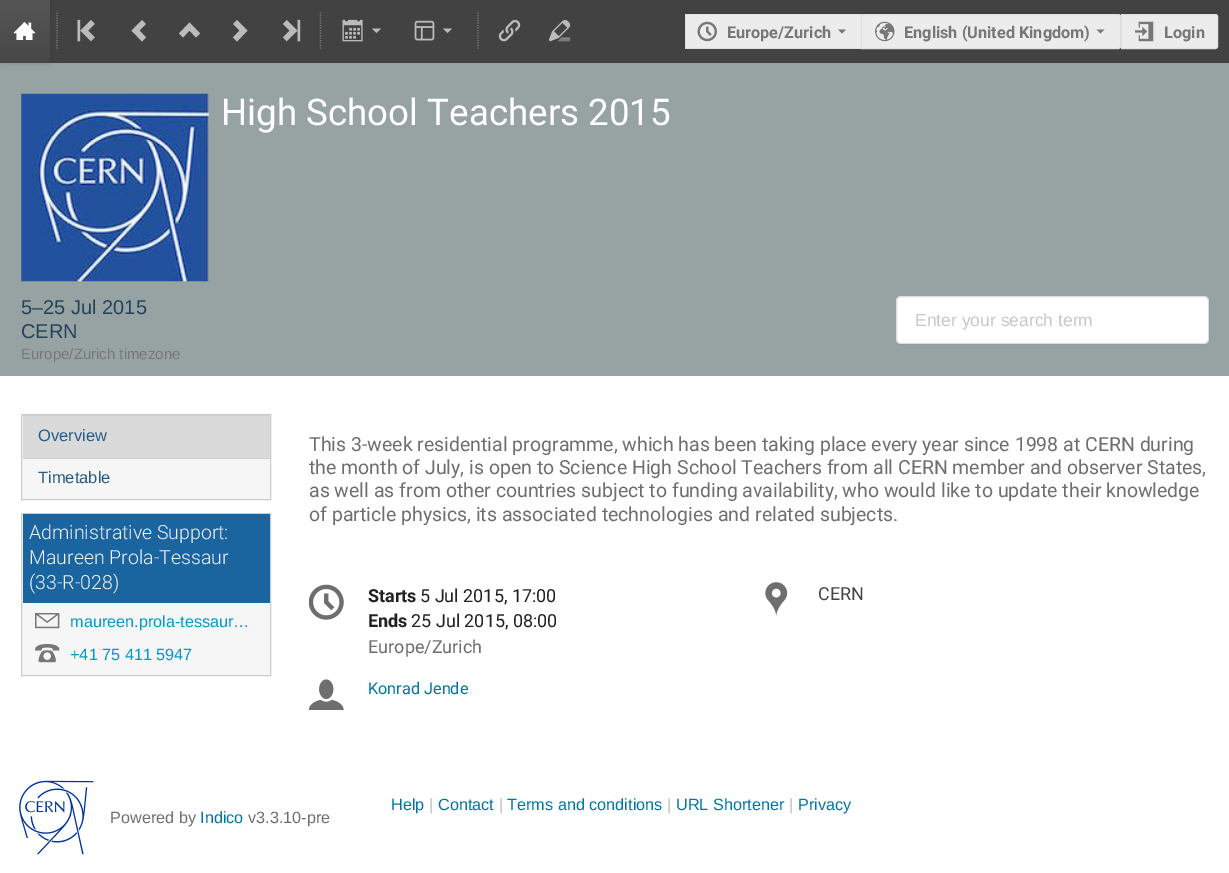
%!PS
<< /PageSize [1229 873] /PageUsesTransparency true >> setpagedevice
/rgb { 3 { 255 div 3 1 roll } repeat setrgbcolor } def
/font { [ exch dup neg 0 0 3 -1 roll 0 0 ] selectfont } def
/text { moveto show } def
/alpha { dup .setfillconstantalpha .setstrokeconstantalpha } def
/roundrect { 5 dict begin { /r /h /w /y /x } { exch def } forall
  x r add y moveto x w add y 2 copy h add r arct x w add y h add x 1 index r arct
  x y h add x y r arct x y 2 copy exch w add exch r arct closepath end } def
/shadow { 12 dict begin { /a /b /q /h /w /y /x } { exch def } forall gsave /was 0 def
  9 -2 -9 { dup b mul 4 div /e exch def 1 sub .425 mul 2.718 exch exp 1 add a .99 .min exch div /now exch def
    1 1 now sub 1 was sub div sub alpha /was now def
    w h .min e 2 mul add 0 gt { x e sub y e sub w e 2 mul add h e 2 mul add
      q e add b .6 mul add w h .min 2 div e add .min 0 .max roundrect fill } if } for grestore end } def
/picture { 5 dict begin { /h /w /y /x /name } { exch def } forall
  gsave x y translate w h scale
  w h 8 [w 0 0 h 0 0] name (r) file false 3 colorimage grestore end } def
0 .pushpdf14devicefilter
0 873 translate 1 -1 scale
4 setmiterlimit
255 255 255 rgb
0 0 1229 873 rectfill
66 66 66 rgb
50 0 1179 63 rectfill
150 163 162 rgb
0 63 1229 313 rectfill
20 20 20 rgb
1 1 50 63 0 2.5 0.1 shadow
gsave 0 0 moveto 50 0 rlineto 0 63 rlineto -50 0 rlineto closepath clip newpath
<< /ShadingType 2 /ColorSpace /DeviceRGB /Coords [25 0 25 63] /Extend [true true] /Function << /FunctionType 2 /Domain [0 1] /C0 [0.333 0.333 0.333] /C1 [0.282 0.282 0.282] /N 1 >> >> shfill grestore
(img_01.rgb) 13 22 23 18 picture
119 119 119 rgb
1.2 setlinewidth
[1.25 1.25] 0 setdash
57 12.5 moveto 0 37.5 rlineto stroke
(img_02.rgb) 77 19 18 23 picture
187 187 187 rgb
142 41.5 moveto 4 -4 rlineto -6.5 -7 rlineto 6.5 -6.5 rlineto -4 -4 rlineto -10.5 10.5 rlineto closepath fill
179 33.5 moveto 4 4 rlineto 6.5 -7 rlineto 6.5 7 rlineto 4 -4 rlineto -10.5 -11 rlineto closepath fill
237 20 moveto -4 4 rlineto 6.5 6.5 rlineto -6.5 7 rlineto 4 4 rlineto 10.5 -11 rlineto closepath fill
(img_03.rgb) 282 19 19 23 picture
119 119 119 rgb
320.5 12.5 moveto 0 37.5 rlineto stroke
(img_04.rgb) 342 19 21 23 picture
187 187 187 rgb
372 28.5 moveto 4.5 4.5 rlineto 4.5 -4.5 rlineto closepath fill
(img_05.rgb) 414 20 21 21 picture
443 28.5 moveto 4.5 4.5 rlineto 4.5 -4.5 rlineto closepath fill
119 119 119 rgb
478 12.5 moveto 0 37.5 rlineto stroke
(img_06.rgb) 498 19 23 23 picture
(img_07.rgb) 548 19 23 23 picture
236 236 236 rgb
686 15 175 33 rectfill
223 223 223 rgb
685 14 176 1 rectfill
685 48 176 1 rectfill
685 14 1 35 rectfill
(img_08.rgb) 697 21 20 21 picture
119 119 119 rgb
838 29.5 moveto 4 4 rlineto 4 -4 rlineto closepath fill
236 236 236 rgb
861.5 14.5 moveto 257 0 rlineto 1 0 2 1 2 2 rcurveto 0 30 rlineto 0 1 -1 2 -2 2 rcurveto -257 0 rlineto closepath gsave fill grestore
223 223 223 rgb
1 setlinewidth
[] 0 setdash
stroke
(img_09.rgb) 875 21 20 21 picture
119 119 119 rgb
1096.5 29.5 moveto 4 4 rlineto 4 -4 rlineto closepath fill
236 236 236 rgb
1121.5 14.5 moveto 94 0 rlineto 1 0 2 1 2 2 rcurveto 0 30 rlineto 0 1 -1 2 -2 2 rcurveto -94 0 rlineto closepath gsave fill grestore
223 223 223 rgb
stroke
(img_10.rgb) 1135 21 19 21 picture
(img_11.rgb) 21 93 188 189 picture
255 255 255 rgb
896 296 313 48 5 roundrect fill
0.15 alpha
34 36 38 rgb
896.5 296.5 312 47 4.5 roundrect stroke
1 alpha
246 246 246 rgb
21.5 414.5 moveto 249 0 rlineto 0 85 rlineto -249 0 rlineto closepath gsave fill grestore
204 204 204 rgb
stroke
218 218 218 rgb
23 416 247 42 rectfill
208 208 208 rgb
23 415 247 1 rectfill
23 458 247 1 rectfill
246 246 246 rgb
21.5 513.5 moveto 249 0 rlineto 0 162 rlineto -249 0 rlineto closepath gsave fill grestore
204 204 204 rgb
stroke
26 100 160 rgb
23 514 247 89 rectfill
(img_12.rgb) 35 613 25 16 picture
(img_13.rgb) 35 643 25 20 picture
(img_14.rgb) 309 584 35 36 picture
(img_15.rgb) 765 582 23 35 picture
(img_16.rgb) 309 679 35 31 picture
(img_17.rgb) 19 780 75 75 picture
/Roboto-Bold 16.25 font
119 119 119 rgb
(Europe/Zurich) 727 38 text
(English \(United Kingdom\)) 904 38 text
(Login) 1164 38 text
/Roboto-Regular 36.75 font
255 255 255 rgb
(High School Teachers 2015) 221 125 text
/LiberationSans-Regular 20 font
36 66 90 rgb
(5–25 Jul 2015) 21 314 text
(CERN) 21 338 text
/LiberationSans-Regular 15 font
119 119 119 rgb
(Europe/Zurich timezone) 21 359 text
/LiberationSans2-Regular 17.5 font
199 199 199 rgb
(Enter your search term) 915 326 text
/LiberationSans2-Regular 16.5 font
39 92 134 rgb
(Overview) 38 441 text
(Timetable) 38 483 text
/Roboto-Light 19.5 font
243 243 243 rgb
(Administrative Support:) 29 539 text
(Maureen Prola-Tessaur) 29 564 text
(\(33-R-028\)) 29 589 text
/LiberationSans-Regular 16.25 font
0 153 204 rgb
(maureen.prola-tessaur…) 70 627 text
(+41 75 411 5947) 70 660 text
/Roboto-Regular 19.5 font
110 110 110 rgb
(This 3-week residential programme, which has been taking place every year since 1998 at CERN during) 309 451 text
(the month of July, is open to Science High School Teachers from all CERN member and observer States,) 309 474 text
(as well as from other countries subject to funding availability, who would like to update their knowledge) 309 497 text
(of particle physics, its associated technologies and related subjects.) 309 521 text
/Roboto-Bold 18 font
33 33 33 rgb
(Starts) 368 602 text
/Roboto-Regular 18 font
(5 Jul 2015, 17:00) 420 602 text
/Roboto-Bold 18 font
(Ends) 368 627 text
/Roboto-Regular 18 font
(25 Jul 2015, 08:00) 411 627 text
110 110 110 rgb
(Europe/Zurich) 368 653 text
68 68 68 rgb
(CERN) 818 600 text
/Roboto-Regular 16.25 font
0 117 163 rgb
(Konrad Jende) 368 694 text
/LiberationSans-Regular 16.25 font
(Help) 391 810 text
187 187 187 rgb
(|) 429 810 text
0 117 163 rgb
(Contact) 438 810 text
187 187 187 rgb
(|) 499 810 text
0 117 163 rgb
(Terms and conditions) 507 810 text
187 187 187 rgb
(|) 667 810 text
0 117 163 rgb
(URL Shortener) 676 810 text
187 187 187 rgb
(|) 789 810 text
0 117 163 rgb
(Privacy) 798 810 text
110 110 110 rgb
(Powered by) 110 823 text
0 117 163 rgb
(Indico) 200 823 text
110 110 110 rgb
(v3.3.10-pre) 248 823 text
.poppdf14devicefilter showpage
